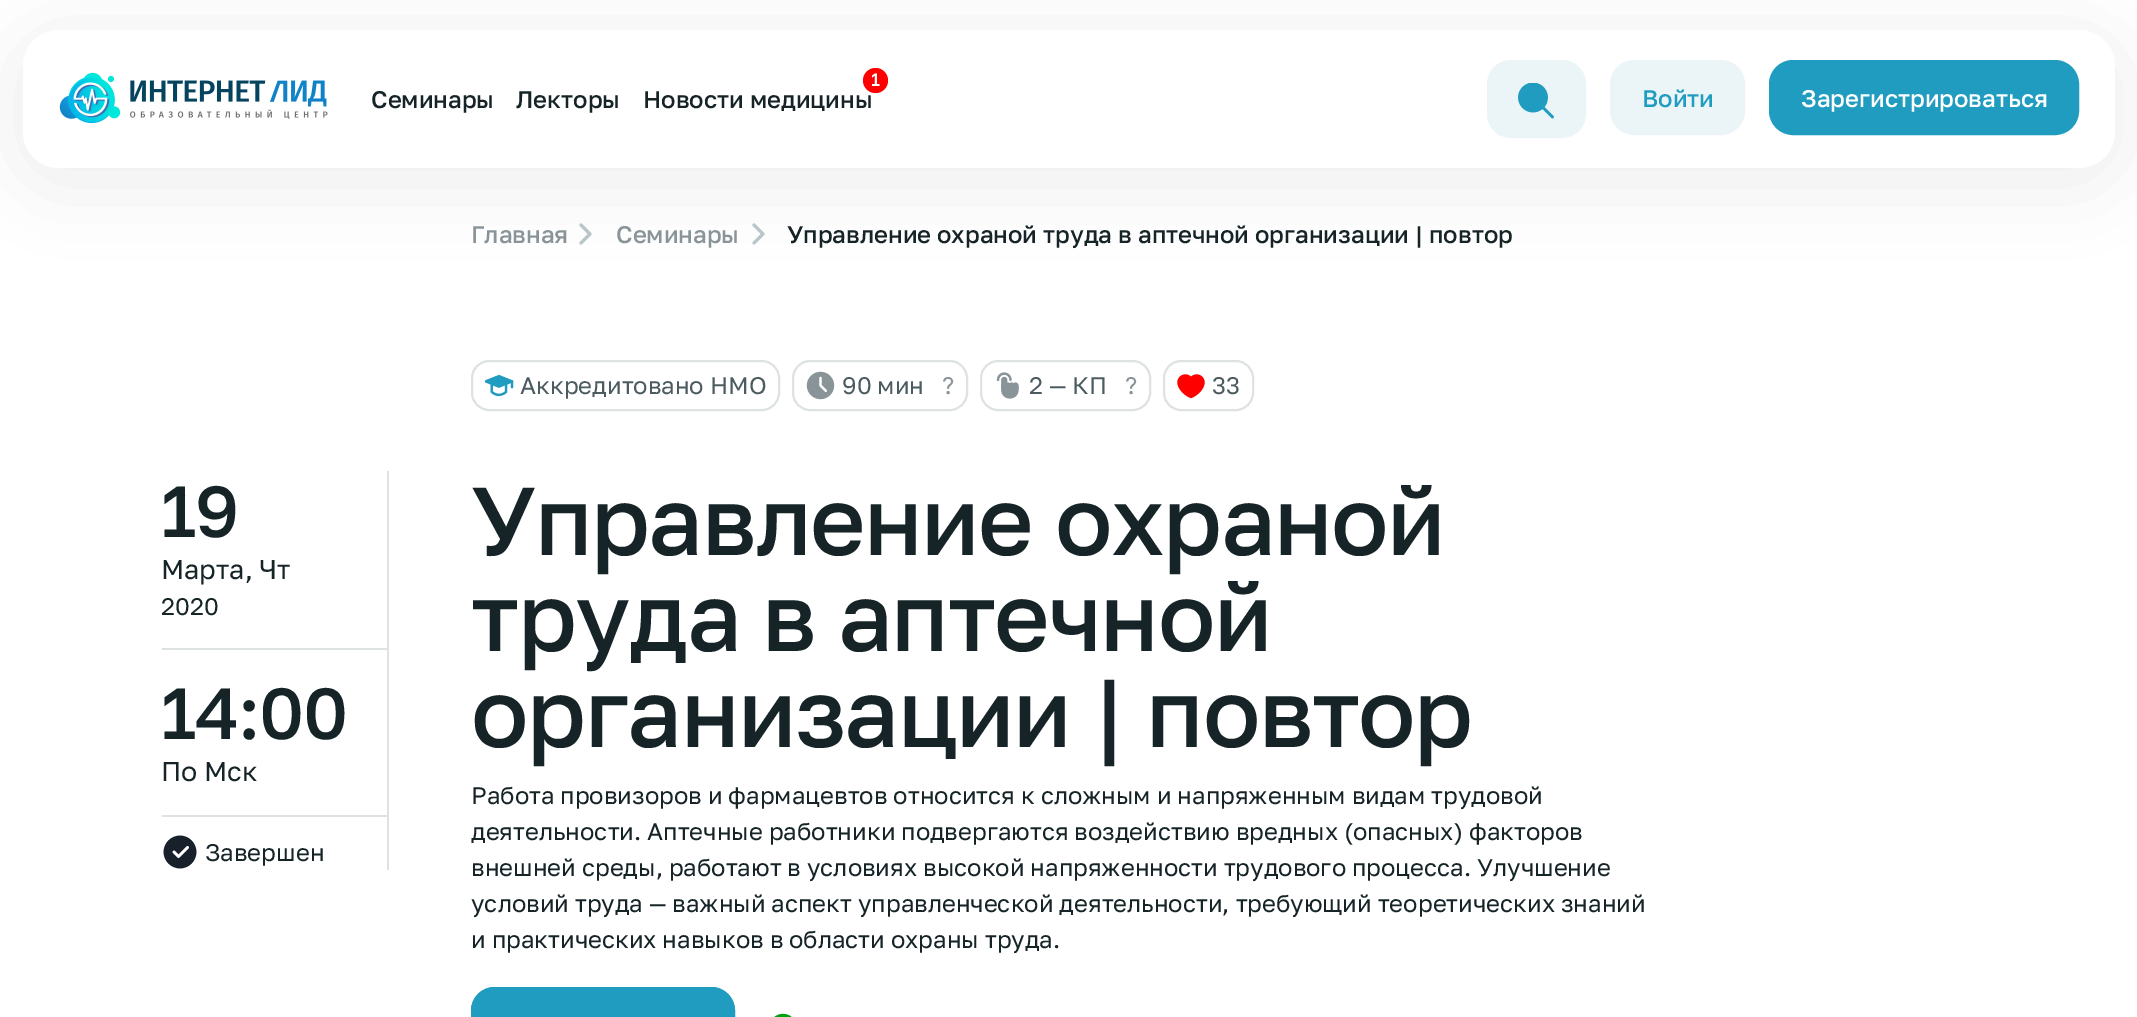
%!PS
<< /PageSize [2137 1017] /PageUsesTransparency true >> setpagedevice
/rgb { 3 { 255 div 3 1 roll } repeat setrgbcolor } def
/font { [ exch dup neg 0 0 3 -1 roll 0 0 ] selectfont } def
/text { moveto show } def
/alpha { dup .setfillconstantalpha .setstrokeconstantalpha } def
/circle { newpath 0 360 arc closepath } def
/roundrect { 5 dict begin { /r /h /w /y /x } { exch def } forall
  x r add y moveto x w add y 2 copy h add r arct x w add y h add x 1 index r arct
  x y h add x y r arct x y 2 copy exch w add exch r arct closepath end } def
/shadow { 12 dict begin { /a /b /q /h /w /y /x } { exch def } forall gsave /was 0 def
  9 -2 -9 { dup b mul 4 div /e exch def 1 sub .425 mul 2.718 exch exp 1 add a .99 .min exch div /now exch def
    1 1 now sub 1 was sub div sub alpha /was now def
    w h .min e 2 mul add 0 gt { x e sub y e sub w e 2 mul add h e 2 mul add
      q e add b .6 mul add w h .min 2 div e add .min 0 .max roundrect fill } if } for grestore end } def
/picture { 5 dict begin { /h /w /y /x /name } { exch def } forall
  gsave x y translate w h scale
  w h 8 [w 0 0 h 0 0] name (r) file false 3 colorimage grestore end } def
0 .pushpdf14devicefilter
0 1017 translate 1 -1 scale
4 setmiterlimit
255 255 255 rgb
0 0 2137 1017 rectfill
188 199 203 rgb
3 setlinewidth
1 setlinecap
1 setlinejoin
581 225 moveto 9 9 rlineto -9 9 rlineto stroke
754 225 moveto 9 9 rlineto -9 9 rlineto stroke
35 32 30 rgb
23 42 2092 138 36 36 0.08 shadow
255 255 255 rgb
23 30 2092 138 36 roundrect fill
(img_01.rgb) 59 72 269 52 picture
235 245 248 rgb
1488 61 97 76 23 roundrect gsave fill grestore
2 setlinewidth
0 setlinecap
0 setlinejoin
stroke
(img_02.rgb) 1518 83 36 36 picture
1611 61 133 73 23 roundrect gsave fill grestore
stroke
31 156 191 rgb
1770 61 308 73 23 roundrect gsave fill grestore
stroke
222 226 227 rgb
472 361 307 49 17 roundrect stroke
(img_03.rgb) 485 374 29 23 picture
793 361 174 49 17 roundrect stroke
(img_04.rgb) 806 371 29 29 picture
981 361 169 49 17 roundrect stroke
(img_05.rgb) 996 372 23 27 picture
1164 361 89 49 17 roundrect stroke
(img_06.rgb) 1177 374 28 25 picture
387 471 2 399 rectfill
162 648 225 2 rectfill
162 815 225 2 rectfill
(img_07.rgb) 163 835 34 34 picture
31 156 191 rgb
495 987 moveto 216 0 rlineto 13.5 0 24 10.5 24 24 rcurveto 0 6 rlineto -264 0 rlineto 0 -6 rlineto 0 -13.5 10.5 -24 24 -24 rcurveto closepath fill
472 988 262 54 23 roundrect stroke
(img_08.rgb) 774 1013 18 4 picture
/GolosText-Medium 24 font
22 36 39 rgb
(Семинары) 371 108 text
(Лекторы) 516 108 text
(Новости медицины) 643 108 text
255 0 0 rgb
875.5 80.5 12.5 circle fill
/GolosText-Medium 18 font
255 255 255 rgb
(1) 871 86 text
/GolosText-Medium 24 font
31 156 191 rgb
(Войти) 1642 107 text
255 255 255 rgb
(Зарегистрироваться) 1801 107 text
137 148 152 rgb
(Главная) 471 243 text
(Семинары) 616 243 text
22 36 39 rgb
(Управление охраной труда в аптечной организации | повтор) 787 243 text
/GolosText-Regular 24 font
75 91 96 rgb
(Аккредитовано НМО) 520 394 text
(90 мин) 842 394 text
137 148 152 rgb
(?) 942 394 text
75 91 96 rgb
(2 — КП) 1029 394 text
137 148 152 rgb
(?) 1125 394 text
75 91 96 rgb
(33) 1212 394 text
/GolosText-Medium 72 font
22 36 39 rgb
161 537 moveto -1.5 0 (19) ashow
/GolosText-Regular 27 font
(Марта, Чт) 161 579 text
/GolosText-Regular 24 font
(2020) 161 615 text
/GolosText-Medium 72 font
161 739 moveto -1.5 0 (14:00) ashow
/GolosText-Regular 27 font
(По Мск) 161 781 text
/GolosText-Regular 24 font
(Завершен) 205 861 text
/GolosText-Medium 96 font
471 555 moveto -1.5 0 (Управление охраной) ashow
471 651 moveto -1.5 0 (труда в аптечной) ashow
471 747 moveto -1.5 0 (организации | повтор) ashow
/GolosText-Regular 24 font
(Работа провизоров и фармацевтов относится к сложным и напряженным видам трудовой) 471 804 text
(деятельности. Аптечные работники подвергаются воздействию вредных \(опасных\) факторов) 471 840 text
(внешней среды, работают в условиях высокой напряженности трудового процесса. Улучшение) 471 876 text
(условий труда — важный аспект управленческой деятельности, требующий теоретических знаний) 471 912 text
(и практических навыков в области охраны труда.) 471 948 text
.poppdf14devicefilter showpage
